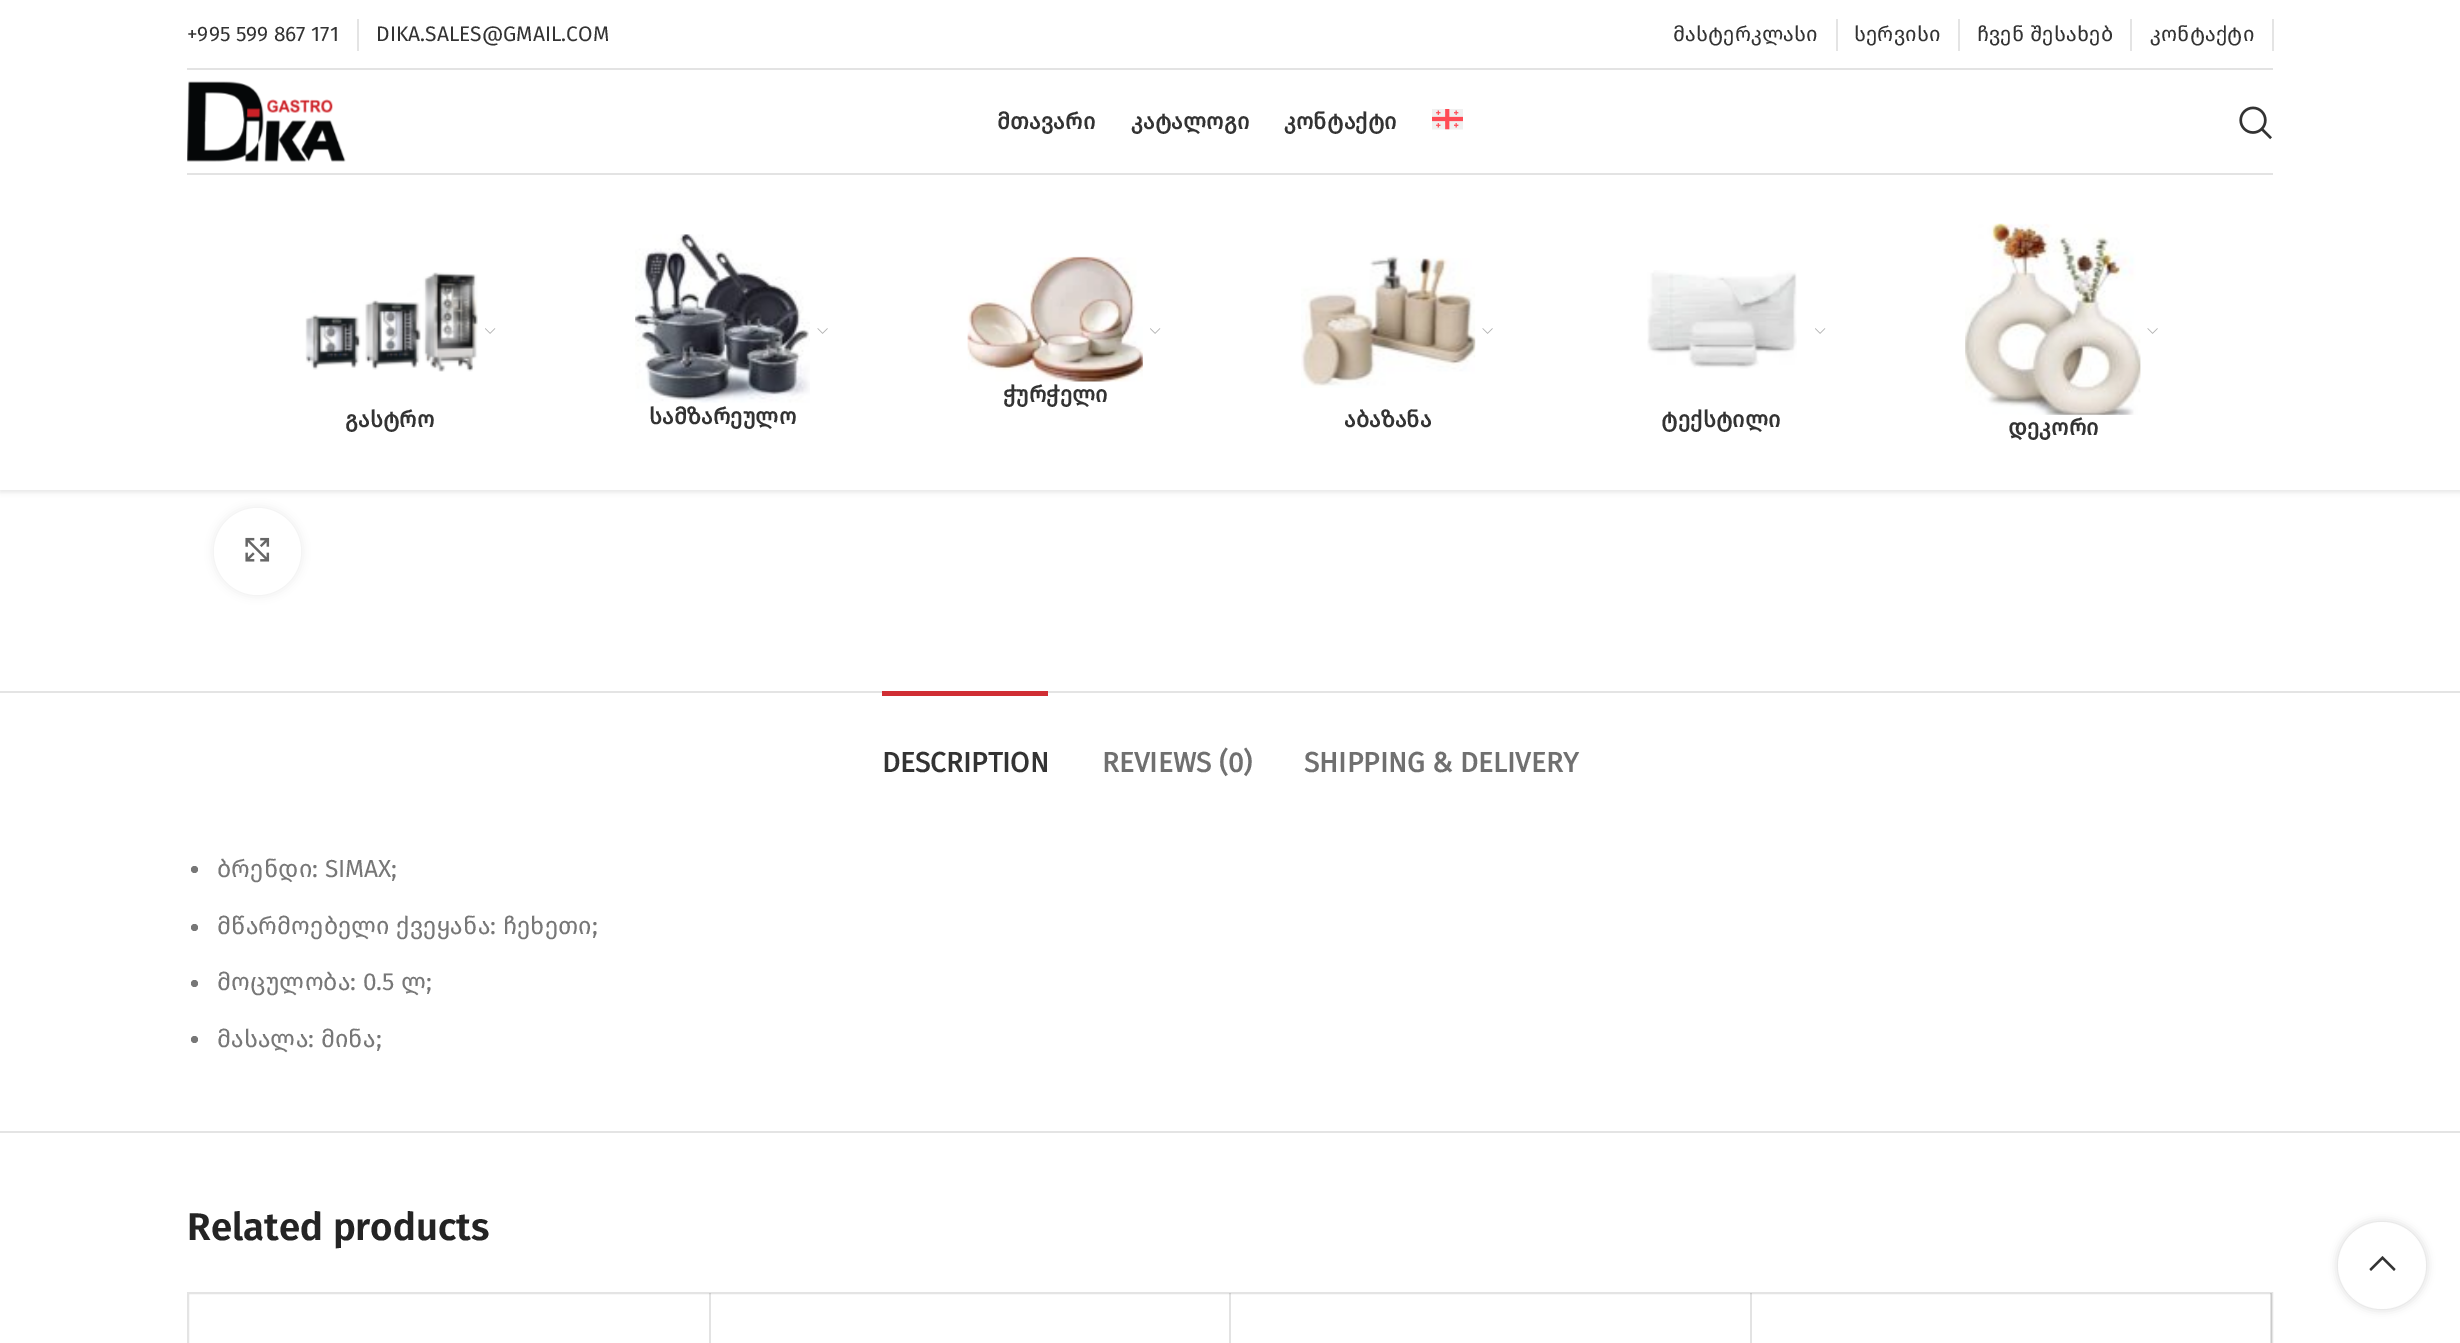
%!PS
<< /PageSize [2460 1343] /PageUsesTransparency true >> setpagedevice
/rgb { 3 { 255 div 3 1 roll } repeat setrgbcolor } def
/font { [ exch dup neg 0 0 3 -1 roll 0 0 ] selectfont } def
/text { moveto show } def
/alpha { dup .setfillconstantalpha .setstrokeconstantalpha } def
/circle { newpath 0 360 arc closepath } def
/roundrect { 5 dict begin { /r /h /w /y /x } { exch def } forall
  x r add y moveto x w add y 2 copy h add r arct x w add y h add x 1 index r arct
  x y h add x y r arct x y 2 copy exch w add exch r arct closepath end } def
/shadow { 12 dict begin { /a /b /q /h /w /y /x } { exch def } forall gsave /was 0 def
  9 -2 -9 { dup b mul 4 div /e exch def 1 sub .425 mul 2.718 exch exp 1 add a .99 .min exch div /now exch def
    1 1 now sub 1 was sub div sub alpha /was now def
    w h .min e 2 mul add 0 gt { x e sub y e sub w e 2 mul add h e 2 mul add
      q e add b .6 mul add w h .min 2 div e add .min 0 .max roundrect fill } if } for grestore end } def
/picture { 5 dict begin { /h /w /y /x /name } { exch def } forall
  gsave x y translate w h scale
  w h 8 [w 0 0 h 0 0] name (r) file false 3 colorimage grestore end } def
0 .pushpdf14devicefilter
0 1343 translate 1 -1 scale
4 setmiterlimit
255 255 255 rgb
0 0 2460 1343 rectfill
0 0 0 rgb
0 2 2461 490 0 2.5 0.1 shadow
255 255 255 rgb
0 0 2460 490 rectfill
227 227 227 rgb
187 68 2086 2 rectfill
228 228 228 rgb
357 19 2 32 rectfill
1836 19 2 32 rectfill
1958 19 2 32 rectfill
2130 19 2 32 rectfill
2272 19 2 32 rectfill
227 227 227 rgb
187 173 2086 2 rectfill
(img_01.rgb) 187 81 159 81 picture
(img_02.rgb) 1432 109 31 21 picture
(img_03.rgb) 2239 106 33 34 picture
(img_04.rgb) 1150 328 11 6 picture
(img_05.rgb) 967 256 176 126 picture
(img_04.rgb) 485 328 11 6 picture
(img_06.rgb) 305 272 173 100 picture
(img_07.rgb) 817 328 11 6 picture
(img_08.rgb) 635 234 175 169 picture
(img_07.rgb) 1482 328 11 6 picture
(img_09.rgb) 1301 255 175 133 picture
(img_04.rgb) 1815 328 11 6 picture
(img_10.rgb) 1647 270 150 99 picture
(img_07.rgb) 2147 328 11 6 picture
(img_11.rgb) 1965 223 176 192 picture
0 0 0 rgb
214 508 87 87 43.5 4.5 0.08 shadow
255 255 255 rgb
257.5 551.5 43.5 circle fill
(img_12.rgb) 245 537 25 25 picture
228 228 228 rgb
0 691 2460 2 rectfill
0 1131 2460 2 rectfill
208 46 52 rgb
882 691 166 5 rectfill
119 119 119 rgb
194.5 869.5 3.5 circle fill
194.5 927.5 3.5 circle fill
194.5 983.5 3.5 circle fill
194.5 1039.5 3.5 circle fill
228 228 228 rgb
2 setlinewidth
188 1293 2084 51 rectstroke
0.11 alpha
0 0 0 rgb
709 1293 2 50 rectfill
1229 1293 2 50 rectfill
1750 1293 2 50 rectfill
2270 1293 2 50 rectfill
gsave
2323 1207 moveto 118 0 rlineto 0 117 rlineto -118 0 rlineto closepath 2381.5 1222 moveto 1 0 rlineto 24 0 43.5 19.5 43.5 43.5 rcurveto 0 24 -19.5 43.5 -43.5 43.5 rcurveto -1 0 rlineto -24 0 -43.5 -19.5 -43.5 -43.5 rcurveto 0 -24 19.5 -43.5 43.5 -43.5 rcurveto closepath eoclip newpath
1 alpha
2338 1222 88 87 43.5 4.5 0.17 shadow
grestore
0.9 alpha
255 255 255 rgb
2338 1222 88 87 43.5 roundrect fill
1 alpha
51 51 51 rgb
2394 1271 moveto 1.5 -2 rlineto -13 -13 rlineto -13 13 rlineto 1.5 2 rlineto 11.5 -11.5 rlineto closepath fill
/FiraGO-Regular 21 font
(+995 599 867 171) 187 41 text
(DIKA.SALES@GMAIL.COM) 376 41 text
(მასტერკლასი) 1673 41 text
(სერვისი) 1854 41 text
(ჩვენ შესახებ) 1977 41 text
(კონტაქტი) 2150 41 text
/FiraGO-Bold 22.75 font
(მთავარი) 997 129 text
(კატალოგი) 1131 129 text
(კონტაქტი) 1284 129 text
(ჭურჭელი) 1003 402 text
(გასტრო) 345 427 text
(სამზარეულო) 649 424 text
(აბაზანა) 1344 427 text
(ტექსტილი) 1661 427 text
(დეკორი) 2008 435 text
/FiraGO-Bold 28 font
(DESCRIPTION) 882 772 text
112 112 112 rgb
(REVIEWS \(0\)) 1102 772 text
(SHIPPING & DELIVERY) 1304 772 text
/FiraGO-Regular 24.5 font
119 119 119 rgb
(ბრენდი: SIMAX;) 217 877 text
(მწარმოებელი ქვეყანა: ჩეხეთი;) 217 934 text
(მოცულობა: 0.5 ლ;) 217 990 text
(მასალა: მინა;) 217 1047 text
/FiraGO-SemiBold 38.5 font
36 36 36 rgb
(Related products) 187 1240 text
.poppdf14devicefilter showpage
